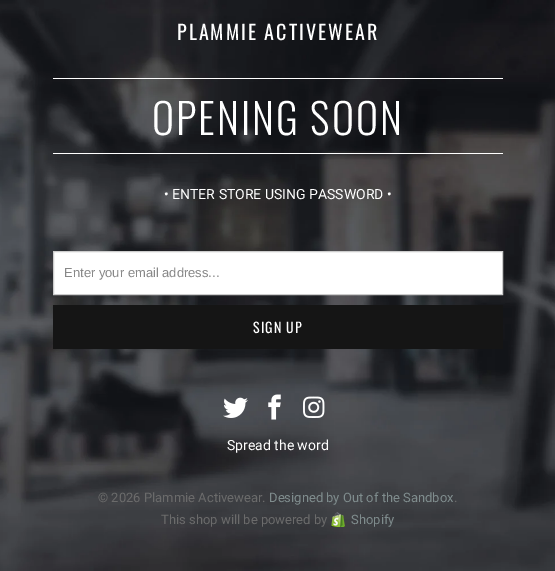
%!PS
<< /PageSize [555 571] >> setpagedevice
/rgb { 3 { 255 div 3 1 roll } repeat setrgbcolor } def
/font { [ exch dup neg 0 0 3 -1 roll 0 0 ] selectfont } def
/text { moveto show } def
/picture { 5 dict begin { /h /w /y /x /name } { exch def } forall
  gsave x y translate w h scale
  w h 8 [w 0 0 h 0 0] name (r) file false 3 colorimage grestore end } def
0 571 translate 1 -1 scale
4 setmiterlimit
255 255 255 rgb
0 0 555 571 rectfill
(img_01.rgb) 0 0 555 571 picture
53 78 450 1 rectfill
53 153 450 1 rectfill
53.5 251.5 moveto 449 0 rlineto 0 43 rlineto -449 0 rlineto closepath gsave fill grestore
204 204 204 rgb
stroke
21 21 21 rgb
53 305 450 44 rectfill
(img_02.rgb) 223 397 25 21 picture
(img_03.rgb) 268 394 13 26 picture
(img_04.rgb) 303 396 22 22 picture
(img_05.rgb) 331 512 14 15 picture
/Oswald-Regular 20 font
255 255 255 rgb
177 40 moveto 2 0 (PLAMMIE ACTIVEWEAR) ashow
/Oswald-Light 42 font
152 135 moveto 2 0 (OPENING SOON) ashow
/Roboto-Regular 14 font
(• ENTER STORE USING PASSWORD •) 164 199 text
/LiberationSans-Regular 13 font
136 136 136 rgb
(Enter your email address...) 64 277 text
/Oswald-Regular 14 font
255 255 255 rgb
253 333 moveto 1 0 (SIGN UP) ashow
/Roboto-Regular 14 font
(Spread the word) 227 450 text
/Roboto-Regular 13 font
107 107 107 rgb
(© 2026 Plammie Activewear.) 98 502 text
127 140 141 rgb
(Designed by Out of the Sandbox) 269 502 text
107 107 107 rgb
(.) 454 502 text
(This shop will be powered by) 161 524 text
127 140 141 rgb
(Shopify) 351 524 text
showpage
